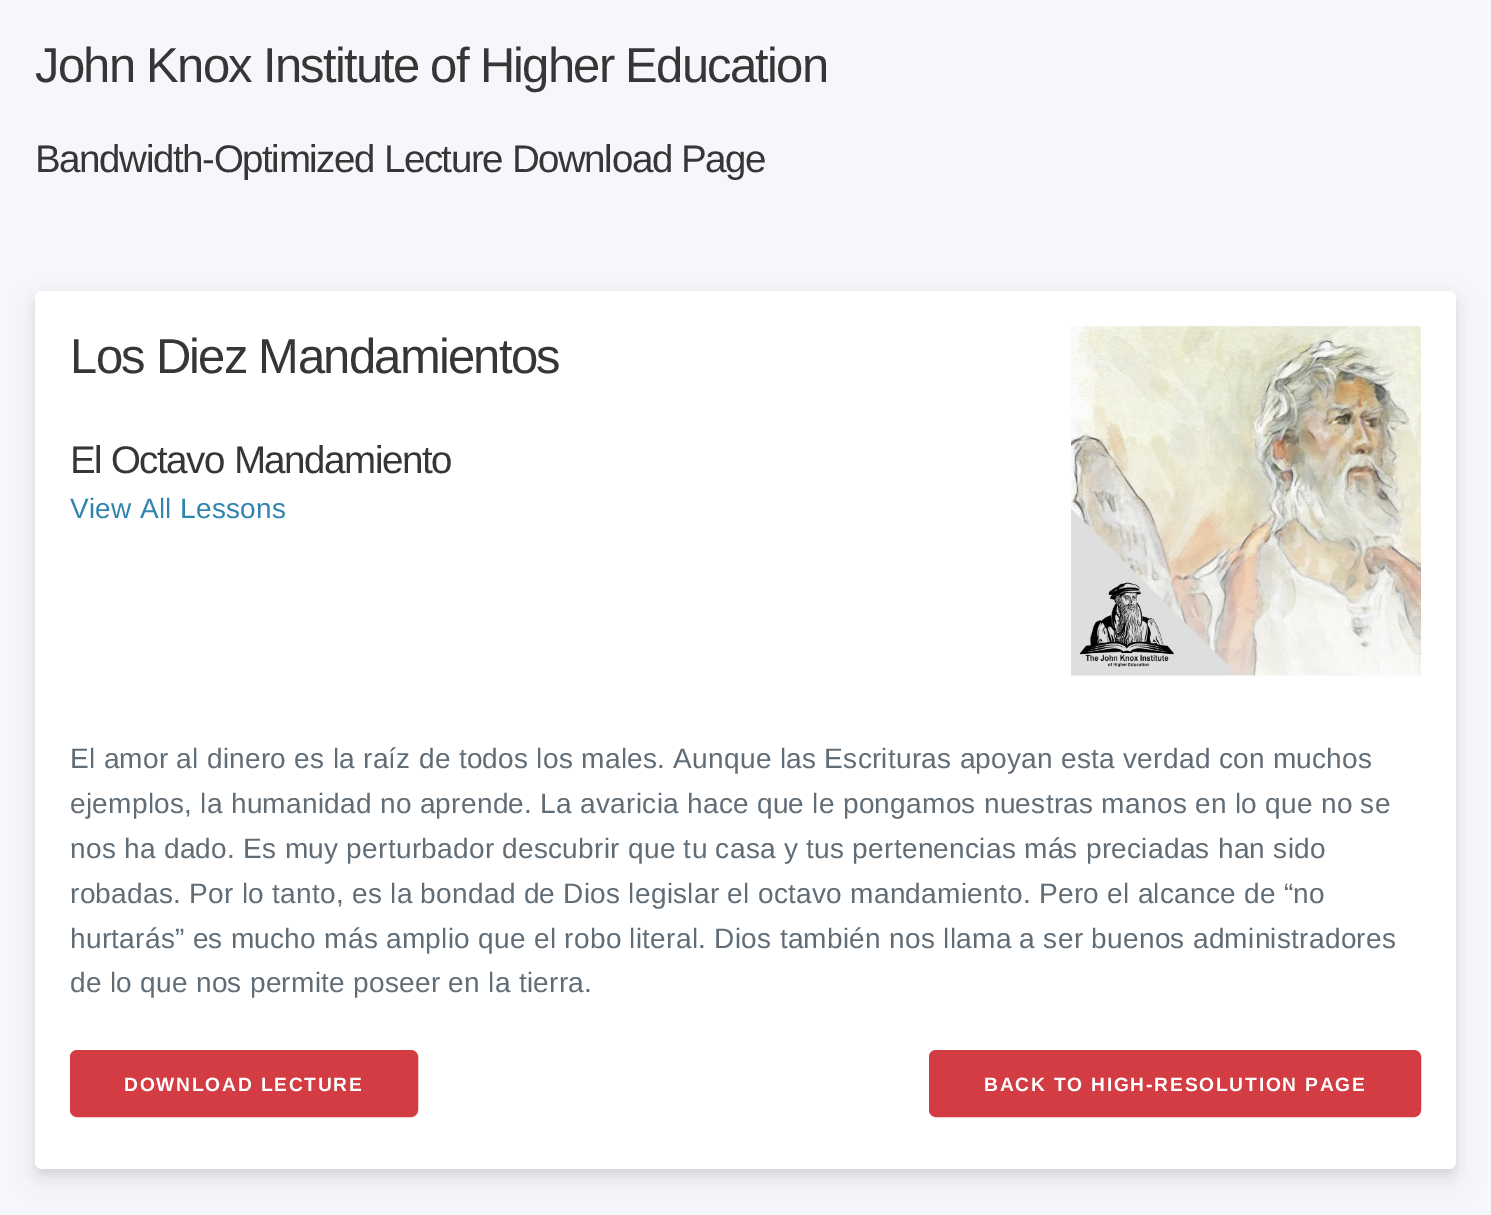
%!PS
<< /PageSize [1491 1215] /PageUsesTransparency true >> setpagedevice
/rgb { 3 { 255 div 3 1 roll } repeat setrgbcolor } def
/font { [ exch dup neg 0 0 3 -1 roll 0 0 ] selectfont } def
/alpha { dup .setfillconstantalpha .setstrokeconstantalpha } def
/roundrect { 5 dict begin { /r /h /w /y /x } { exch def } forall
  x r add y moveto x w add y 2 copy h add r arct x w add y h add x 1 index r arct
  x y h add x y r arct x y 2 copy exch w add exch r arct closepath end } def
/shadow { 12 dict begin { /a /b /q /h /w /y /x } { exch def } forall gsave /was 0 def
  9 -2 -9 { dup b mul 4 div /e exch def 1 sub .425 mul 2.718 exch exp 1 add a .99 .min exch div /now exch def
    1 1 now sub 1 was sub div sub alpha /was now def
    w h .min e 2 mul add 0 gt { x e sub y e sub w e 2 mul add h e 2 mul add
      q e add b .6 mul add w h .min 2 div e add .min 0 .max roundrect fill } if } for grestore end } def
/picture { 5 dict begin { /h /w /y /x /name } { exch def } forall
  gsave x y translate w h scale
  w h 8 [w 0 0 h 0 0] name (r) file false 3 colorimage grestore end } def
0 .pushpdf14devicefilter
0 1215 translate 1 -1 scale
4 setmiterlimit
245 247 250 rgb
0 0 1491 1215 rectfill
0 0 0 rgb
35 296 1421 878 7 5 0.07 shadow
60 66 87 rgb
35 303 1421 878 7 12 0.1 shadow
255 255 255 rgb
35 291 1421 878 7 roundrect fill
(img_01.rgb) 1071 325 350 351 picture
211 60 67 rgb
71 1051 346 65 6 roundrect gsave fill grestore
2 setlinewidth
stroke
930 1051 490 65 6 roundrect gsave fill grestore
stroke
/LiberationSans-Regular 49 font
54 54 55 rgb
35 82 moveto -1.75 0 (John Knox Institute of Higher Education) ashow
/LiberationSans-Regular 38.5 font
35 172 moveto -1.4 0 (Bandwidth-Optimized Lecture Download Page) ashow
/LiberationSans-Regular 49 font
70 373 moveto -1.75 0 (Los Diez Mandamientos) ashow
/LiberationSans-Regular 38.5 font
70 473 moveto -1.4 0 (El Octavo Mandamiento) ashow
/LiberationSans-Regular 28 font
47 133 174 rgb
70 518 moveto 0.28 0 (View All Lessons) ashow
96 108 118 rgb
70 768 moveto 0.28 0 (El amor al dinero es la raíz de todos los males. Aunque las Escrituras apoyan esta verdad con muchos) ashow
70 813 moveto 0.28 0 (ejemplos, la humanidad no aprende. La avaricia hace que le pongamos nuestras manos en lo que no se) ashow
70 858 moveto 0.28 0 (nos ha dado. Es muy perturbador descubrir que tu casa y tus pertenencias más preciadas han sido) ashow
70 903 moveto 0.28 0 (robadas. Por lo tanto, es la bondad de Dios legislar el octavo mandamiento. Pero el alcance de “no) ashow
70 948 moveto 0.28 0 (hurtarás” es mucho más amplio que el robo literal. Dios también nos llama a ser buenos administradores) ashow
70 992 moveto 0.28 0 (de lo que nos permite poseer en la tierra.) ashow
/LiberationSans-Bold 19.25 font
255 255 255 rgb
124 1091 moveto 1.75 0 (DOWNLOAD LECTURE) ashow
984 1091 moveto 1.75 0 (BACK TO HIGH-RESOLUTION PAGE) ashow
.poppdf14devicefilter showpage
